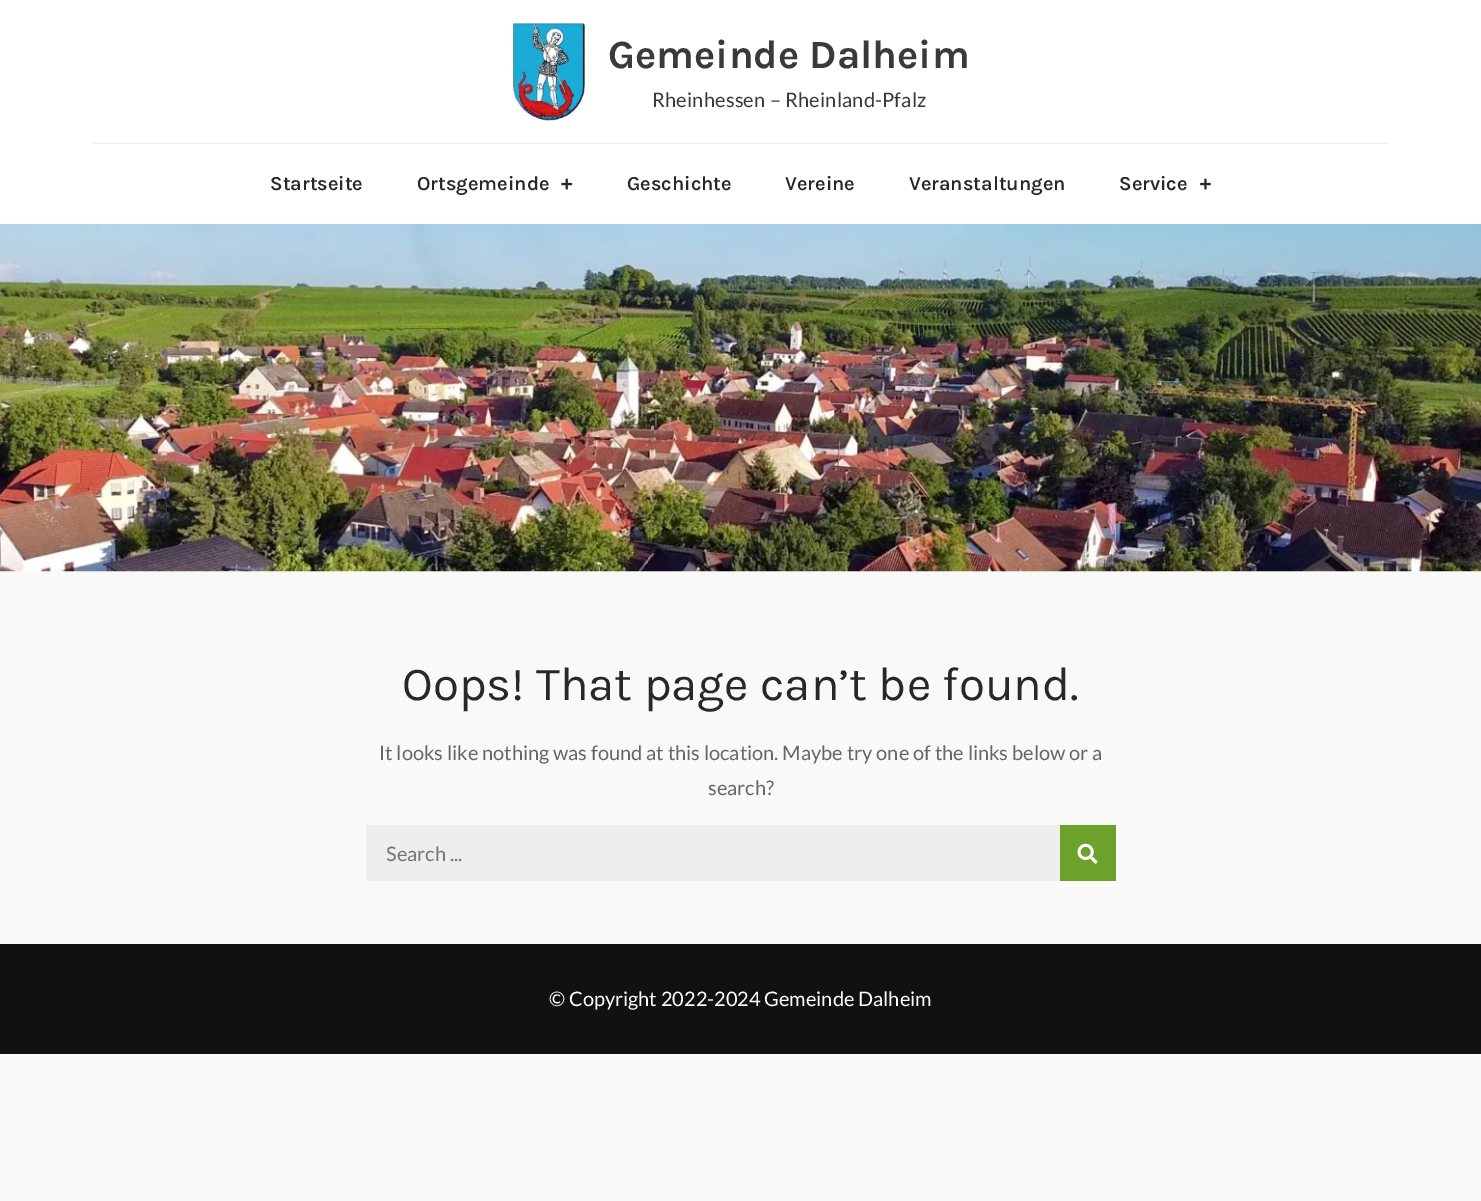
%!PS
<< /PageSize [1481 1201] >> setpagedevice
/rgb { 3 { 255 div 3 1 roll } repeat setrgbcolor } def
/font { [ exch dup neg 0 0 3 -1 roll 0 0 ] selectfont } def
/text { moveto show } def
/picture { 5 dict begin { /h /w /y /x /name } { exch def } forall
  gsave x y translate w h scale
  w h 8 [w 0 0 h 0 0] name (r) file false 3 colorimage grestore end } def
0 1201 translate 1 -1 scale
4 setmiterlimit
249 249 247 rgb
0 0 1481 1201 rectfill
255 255 255 rgb
0 0 1481 224 rectfill
(img_01.rgb) 513 23 72 98 picture
238 238 238 rgb
93 143 1296 1 rectfill
(img_02.rgb) 561 178 12 12 picture
(img_03.rgb) 1200 178 11 12 picture
(img_04.rgb) 0 224 1481 348 picture
366 825 694 56 rectfill
108 161 43 rgb
1060 825 56 56 rectfill
(img_05.rgb) 1077 843 21 21 picture
17 17 17 rgb
0 944 1481 110 rectfill
/Karla-Bold 40 font
58 58 58 rgb
(Gemeinde Dalheim) 608 68 text
/Lato-Regular 20 font
652 107 moveto 0.2 0 (Rheinhessen – Rheinland-Pfalz) ashow
/Karla-SemiBold 20 font
40 40 40 rgb
(Startseite) 270 190 text
(Ortsgemeinde) 417 190 text
(Geschichte) 627 190 text
(Vereine) 785 190 text
(Veranstaltungen) 909 190 text
(Service) 1119 190 text
/Karla-Regular 47.5 font
(Oops! That page can’t be found.) 402 700 text
/Lato-Regular 20 font
102 102 102 rgb
(It looks like nothing was found at this location. Maybe try one of the links below or a) 379 760 text
(search?) 708 795 text
117 117 117 rgb
(Search ...) 386 861 text
255 255 255 rgb
(© Copyright 2022-2024 Gemeinde Dalheim) 549 1006 text
showpage
